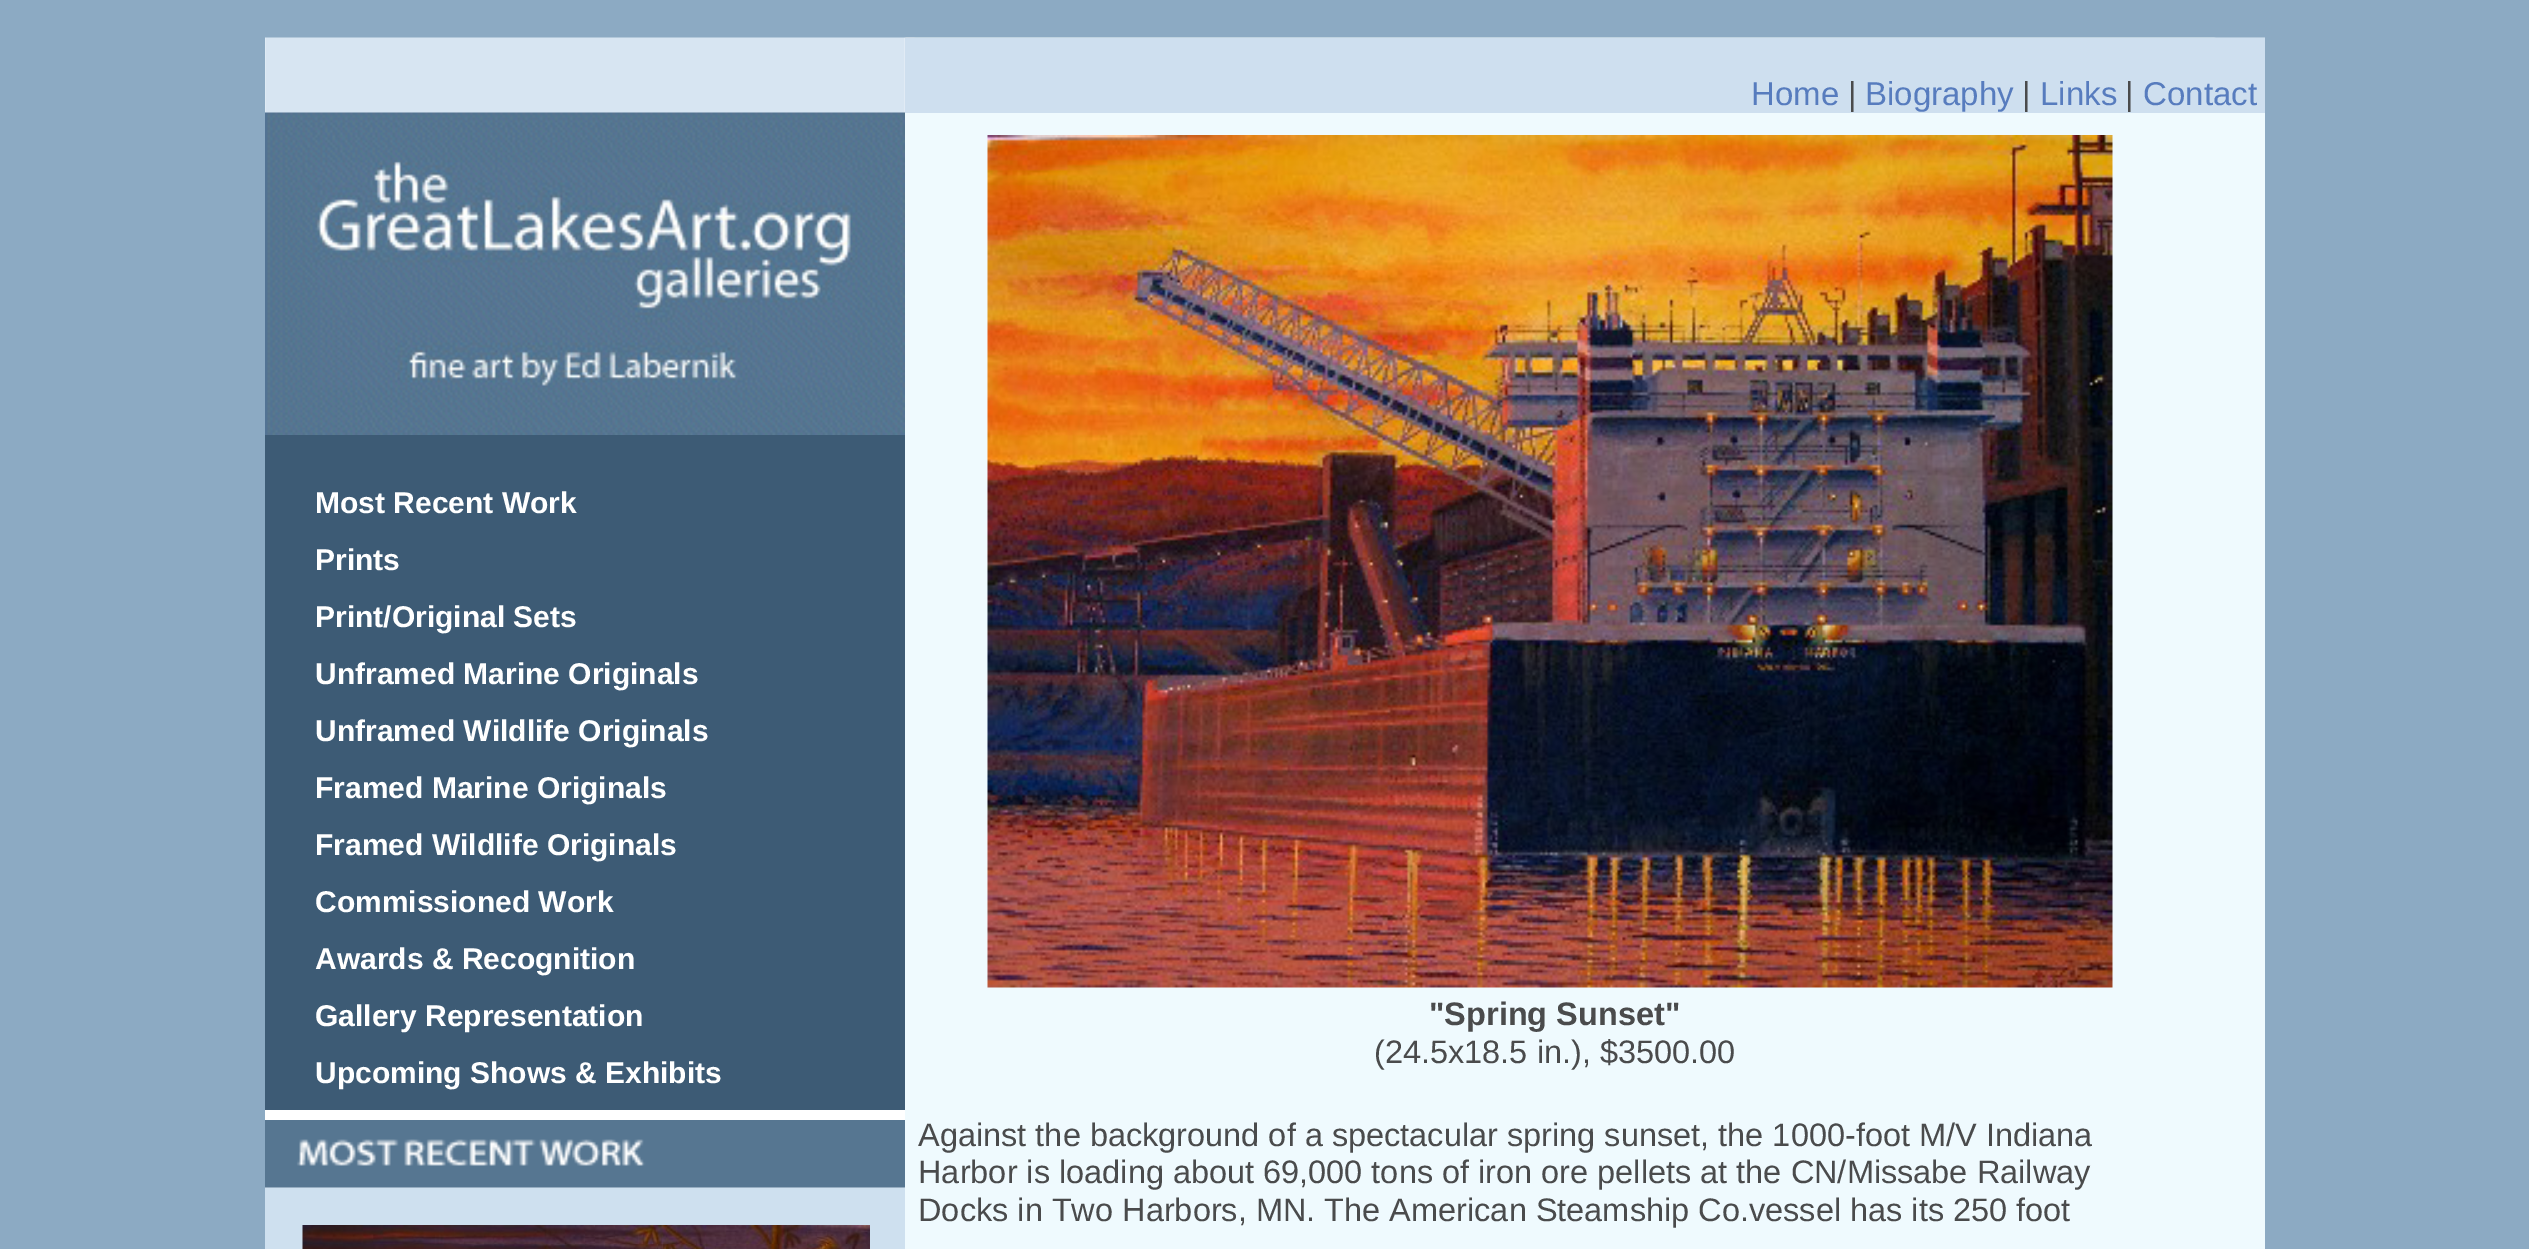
%!PS
<< /PageSize [2529 1249] >> setpagedevice
/rgb { 3 { 255 div 3 1 roll } repeat setrgbcolor } def
/font { [ exch dup neg 0 0 3 -1 roll 0 0 ] selectfont } def
/text { moveto show } def
/picture { 5 dict begin { /h /w /y /x /name } { exch def } forall
  gsave x y translate w h scale
  w h 8 [w 0 0 h 0 0] name (r) file false 3 colorimage grestore end } def
0 1249 translate 1 -1 scale
4 setmiterlimit
140 170 195 rgb
0 0 2529 1249 rectfill
(img_01.rgb) 265 37 2000 1151 picture
206 223 239 rgb
905 38 1360 75 rectfill
(img_02.rgb) 265 112 1 1076 picture
(img_03.rgb) 265 112 640 323 picture
61 91 117 rgb
265 435 640 675 rectfill
255 255 255 rgb
265 1110 640 10 rectfill
(img_04.rgb) 265 1120 640 68 picture
206 224 239 rgb
265 1188 640 61 rectfill
(img_05.rgb) 302 1225 568 24 picture
239 250 254 rgb
905 113 1360 1136 rectfill
(img_06.rgb) 987 135 1126 853 picture
/LiberationSans-Regular 33 font
87 124 190 rgb
(Home) 1751 105 text
74 75 76 rgb
(|) 1848 105 text
87 124 190 rgb
(Biography) 1865 105 text
74 75 76 rgb
(|) 2022 105 text
87 124 190 rgb
(Links) 2040 105 text
74 75 76 rgb
(|) 2125 105 text
87 124 190 rgb
(Contact) 2143 105 text
/LiberationSans-Bold 30 font
255 255 255 rgb
(Most Recent Work) 315 513 text
(Prints) 315 570 text
(Print/Original Sets) 315 627 text
(Unframed Marine Originals) 315 684 text
(Unframed Wildlife Originals) 315 741 text
(Framed Marine Originals) 315 798 text
(Framed Wildlife Originals) 315 855 text
(Commissioned Work) 315 912 text
(Awards & Recognition) 315 969 text
(Gallery Representation) 315 1026 text
(Upcoming Shows & Exhibits) 315 1083 text
/LiberationSans-Bold 32.5 font
74 75 76 rgb
("Spring Sunset") 1429 1025 text
/LiberationSans-Regular 32.5 font
(\(24.5x18.5 in.\), $3500.00) 1374 1063 text
(Against the background of a spectacular spring sunset, the 1000-foot M/V Indiana) 918 1146 text
(Harbor is loading about 69,000 tons of iron ore pellets at the CN/Missabe Railway) 918 1183 text
(Docks in Two Harbors, MN. The American Steamship Co.vessel has its 250 foot) 918 1221 text
showpage
